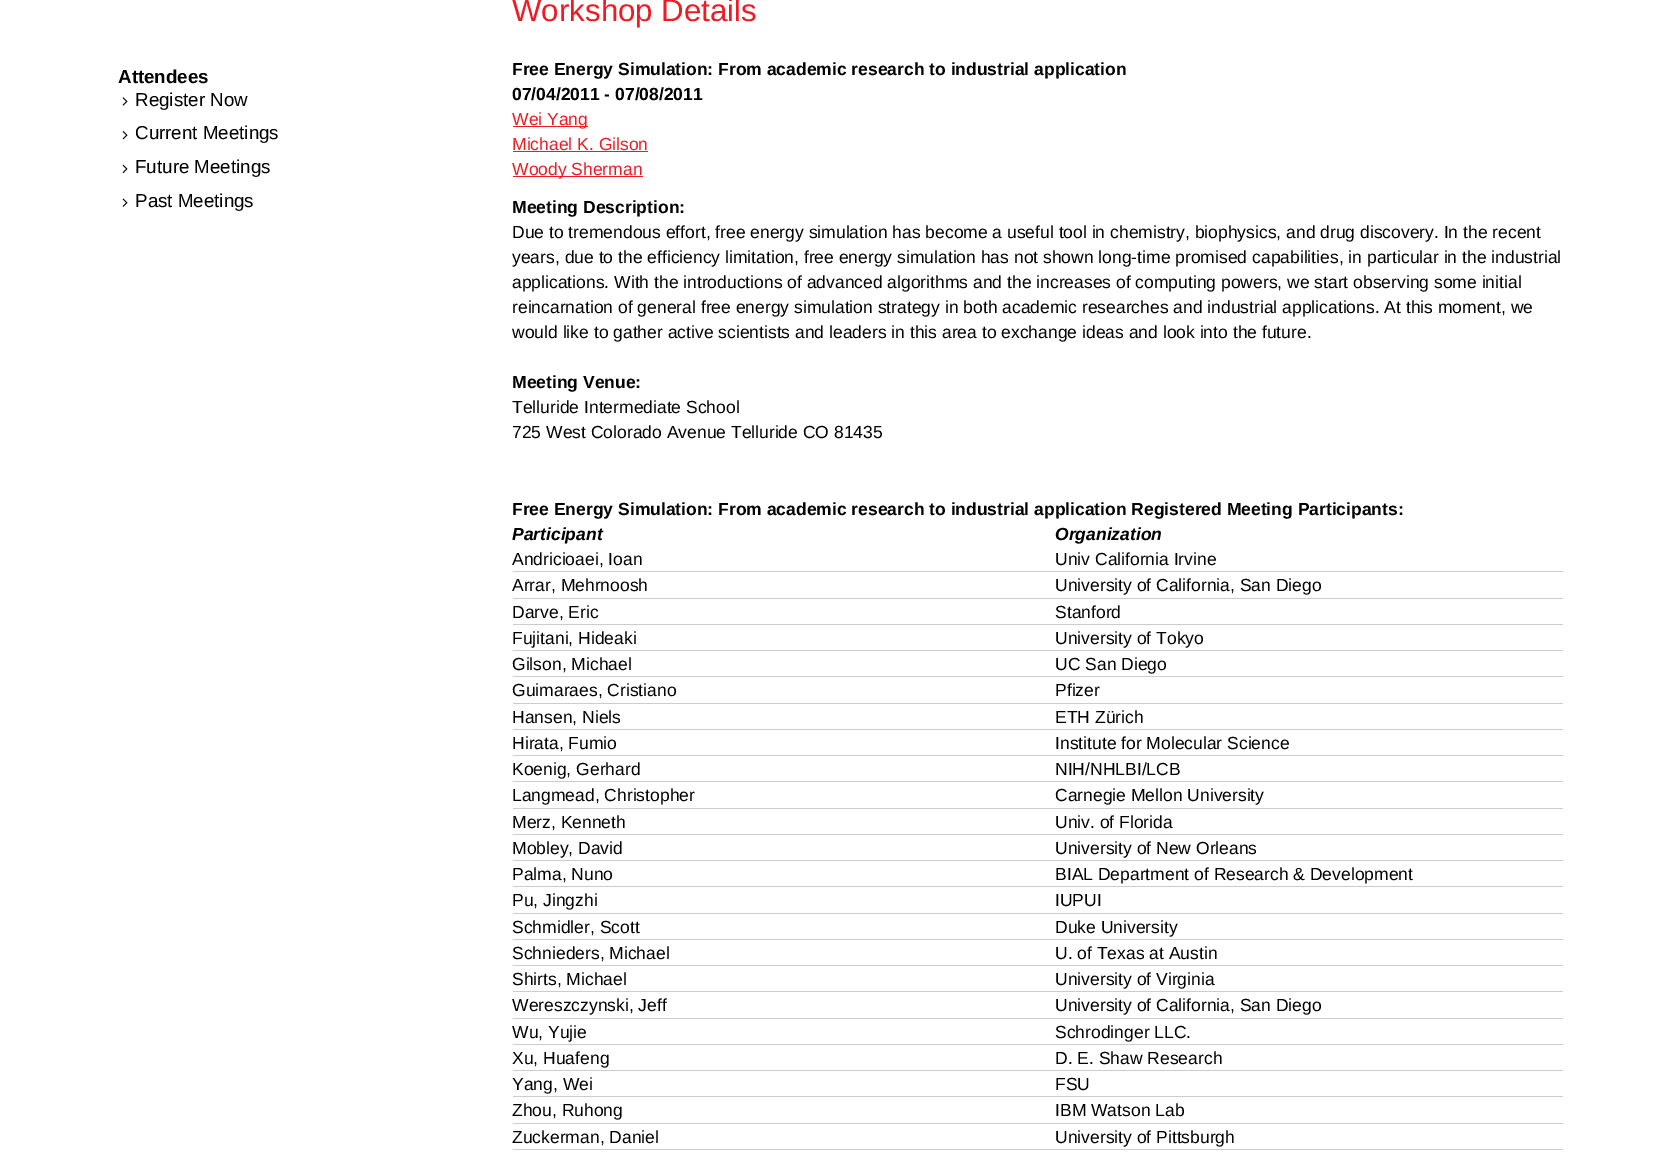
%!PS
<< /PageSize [1661 1169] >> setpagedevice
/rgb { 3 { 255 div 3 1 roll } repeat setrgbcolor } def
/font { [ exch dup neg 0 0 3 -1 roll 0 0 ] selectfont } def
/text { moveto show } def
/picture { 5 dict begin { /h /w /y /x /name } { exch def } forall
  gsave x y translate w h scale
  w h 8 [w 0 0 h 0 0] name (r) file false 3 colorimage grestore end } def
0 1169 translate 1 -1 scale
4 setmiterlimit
255 255 255 rgb
0 0 1661 1169 rectfill
(img_01.rgb) 122 97 6 9 picture
(img_02.rgb) 122 131 6 9 picture
(img_03.rgb) 122 164 6 10 picture
(img_04.rgb) 122 198 6 9 picture
237 27 36 rgb
513 126 75 1 rectfill
513 151 135 1 rectfill
513 176 130 1 rectfill
204 204 204 rgb
513 571 1050 1 rectfill
513 598 1050 1 rectfill
513 624 1050 1 rectfill
513 650 1050 1 rectfill
513 676 1050 1 rectfill
513 703 1050 1 rectfill
513 729 1050 1 rectfill
513 755 1050 1 rectfill
513 781 1050 1 rectfill
513 808 1050 1 rectfill
513 834 1050 1 rectfill
513 860 1050 1 rectfill
513 886 1050 1 rectfill
513 913 1050 1 rectfill
513 939 1050 1 rectfill
513 965 1050 1 rectfill
513 991 1050 1 rectfill
513 1018 1050 1 rectfill
513 1044 1050 1 rectfill
513 1070 1050 1 rectfill
513 1096 1050 1 rectfill
513 1123 1050 1 rectfill
513 1149 1050 1 rectfill
/LiberationSans-Bold 18.75 font
0 0 0 rgb
(Attendees) 118 83 text
/LiberationSans-Regular 18.75 font
(Register Now) 135 106 text
(Current Meetings) 135 139 text
(Future Meetings) 135 173 text
(Past Meetings) 135 207 text
/LiberationSans-Regular 31.25 font
237 27 36 rgb
(Workshop Details) 512 21 text
/LiberationSans-Bold 17.5 font
0 0 0 rgb
(Free Energy Simulation: From academic research to industrial application) 512 75 text
(07/04/2011 - 07/08/2011) 512 100 text
/LiberationSans-Regular 17.5 font
237 27 36 rgb
(Wei Yang) 512 125 text
(Michael K. Gilson) 512 150 text
(Woody Sherman) 512 175 text
/LiberationSans-Bold 17.5 font
0 0 0 rgb
(Meeting Description:) 512 213 text
/LiberationSans-Regular 17.5 font
(Due to tremendous effort, free energy simulation has become a useful tool in chemistry, biophysics, and drug discovery. In the recent) 512 238 text
(years, due to the efficiency limitation, free energy simulation has not shown long-time promised capabilities, in particular in the industrial) 512 263 text
(applications. With the introductions of advanced algorithms and the increases of computing powers, we start observing some initial) 512 288 text
(reincarnation of general free energy simulation strategy in both academic researches and industrial applications. At this moment, we) 512 313 text
(would like to gather active scientists and leaders in this area to exchange ideas and look into the future.) 512 338 text
/LiberationSans-Bold 17.5 font
(Meeting Venue:) 512 388 text
/LiberationSans-Regular 17.5 font
(Telluride Intermediate School) 512 413 text
(725 West Colorado Avenue Telluride CO 81435) 512 438 text
/LiberationSans-Bold 17.5 font
(Free Energy Simulation: From academic research to industrial application Registered Meeting Participants:) 512 515 text
/LiberationSans-BoldItalic 17.5 font
(Participant) 512 540 text
(Organization) 1055 540 text
/LiberationSans-Regular 17.5 font
(Andricioaei, Ioan) 512 565 text
(Univ California Irvine) 1055 565 text
(Arrar, Mehrnoosh) 512 591 text
(University of California, San Diego) 1055 591 text
(Darve, Eric) 512 618 text
(Stanford) 1055 618 text
(Fujitani, Hideaki) 512 644 text
(University of Tokyo) 1055 644 text
(Gilson, Michael) 512 670 text
(UC San Diego) 1055 670 text
(Guimaraes, Cristiano) 512 696 text
(Pfizer) 1055 696 text
(Hansen, Niels) 512 723 text
(ETH Zürich) 1055 723 text
(Hirata, Fumio) 512 749 text
(Institute for Molecular Science) 1055 749 text
(Koenig, Gerhard) 512 775 text
(NIH/NHLBI/LCB) 1055 775 text
(Langmead, Christopher) 512 801 text
(Carnegie Mellon University) 1055 801 text
(Merz, Kenneth) 512 828 text
(Univ. of Florida) 1055 828 text
(Mobley, David) 512 854 text
(University of New Orleans) 1055 854 text
(Palma, Nuno) 512 880 text
(BIAL Department of Research & Development) 1055 880 text
(Pu, Jingzhi) 512 906 text
(IUPUI) 1055 906 text
(Schmidler, Scott) 512 933 text
(Duke University) 1055 933 text
(Schnieders, Michael) 512 959 text
(U. of Texas at Austin) 1055 959 text
(Shirts, Michael) 512 985 text
(University of Virginia) 1055 985 text
(Wereszczynski, Jeff) 512 1011 text
(University of California, San Diego) 1055 1011 text
(Wu, Yujie) 512 1038 text
(Schrodinger LLC.) 1055 1038 text
(Xu, Huafeng) 512 1064 text
(D. E. Shaw Research) 1055 1064 text
(Yang, Wei) 512 1090 text
(FSU) 1055 1090 text
(Zhou, Ruhong) 512 1116 text
(IBM Watson Lab) 1055 1116 text
(Zuckerman, Daniel) 512 1143 text
(University of Pittsburgh) 1055 1143 text
showpage
